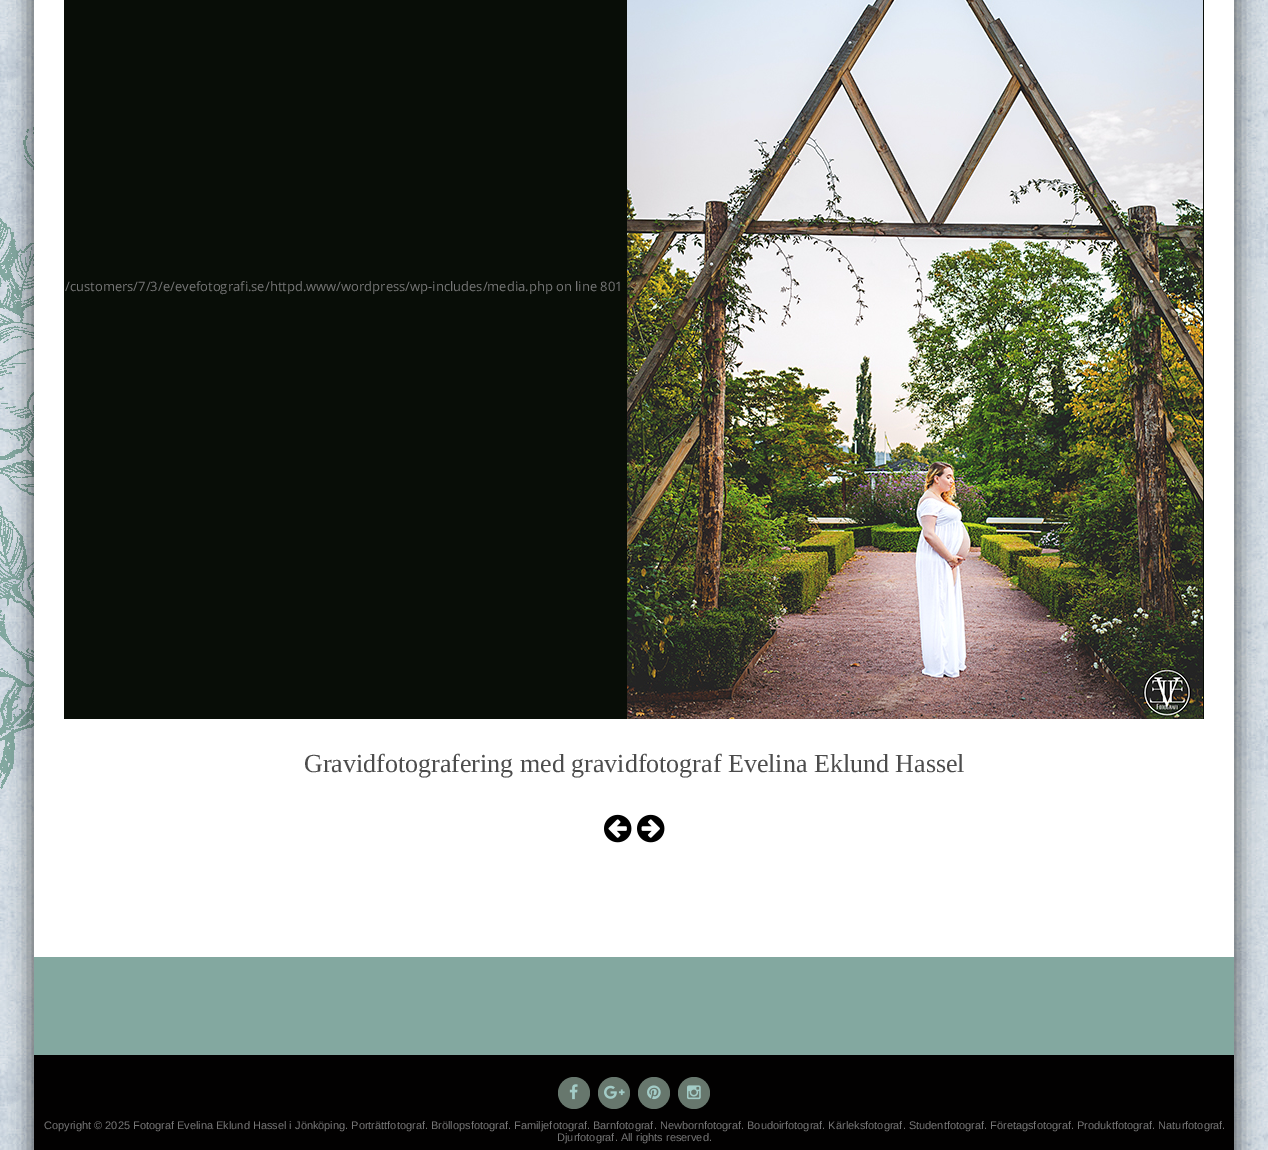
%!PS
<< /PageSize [1268 1150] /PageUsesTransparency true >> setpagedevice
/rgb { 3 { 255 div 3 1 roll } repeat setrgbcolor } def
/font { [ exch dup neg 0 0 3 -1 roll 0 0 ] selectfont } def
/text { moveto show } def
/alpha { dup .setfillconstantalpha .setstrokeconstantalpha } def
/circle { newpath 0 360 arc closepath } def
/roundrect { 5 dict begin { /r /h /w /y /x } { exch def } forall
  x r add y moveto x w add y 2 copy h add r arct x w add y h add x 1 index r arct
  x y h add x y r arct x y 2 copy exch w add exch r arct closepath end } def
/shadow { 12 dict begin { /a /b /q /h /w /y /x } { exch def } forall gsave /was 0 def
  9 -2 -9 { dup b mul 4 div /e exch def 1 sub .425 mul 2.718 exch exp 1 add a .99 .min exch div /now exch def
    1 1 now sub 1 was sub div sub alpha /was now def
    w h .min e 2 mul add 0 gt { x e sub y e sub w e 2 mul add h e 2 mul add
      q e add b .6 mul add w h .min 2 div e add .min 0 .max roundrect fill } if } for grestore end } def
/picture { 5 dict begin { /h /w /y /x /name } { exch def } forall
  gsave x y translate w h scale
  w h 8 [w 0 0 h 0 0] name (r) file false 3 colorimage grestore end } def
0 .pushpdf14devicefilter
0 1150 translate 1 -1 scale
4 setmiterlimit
255 255 255 rgb
0 0 1268 1150 rectfill
(img_01.rgb) 0 0 1268 1150 picture
0 0 0 rgb
29 -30 1210 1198 0 10 0.5 shadow
255 255 255 rgb
34 0 1200 957 rectfill
8 13 7 rgb
64 0 1140 719 rectfill
(img_02.rgb) 627 0 576 719 picture
(img_03.rgb) 604 814 28 29 picture
(img_04.rgb) 637 814 28 29 picture
131 168 160 rgb
34 957 1200 98 rectfill
2 1 1 rgb
34 1055 1200 95 rectfill
103 119 109 rgb
574 1093 16 circle fill
(img_05.rgb) 569 1084 9 16 picture
614 1093 16 circle fill
(img_06.rgb) 604 1085 21 14 picture
654 1093 16 circle fill
(img_07.rgb) 647 1085 14 15 picture
694 1093 16 circle fill
(img_08.rgb) 687 1085 14 15 picture
/OpenSans-Regular 13 font
118 118 118 rgb
(/customers/7/3/e/evefotografi.se/httpd.www/wordpress/wp-includes/media.php on line 801) 65 291 text
/LiberationSerif-Regular 26 font
76 76 76 rgb
(Gravidfotografering med gravidfotograf Evelina Eklund Hassel) 304 772 text
/LiberationSans-Regular 11.01 font
118 118 118 rgb
(Copyright © 2025 Fotograf Evelina Eklund Hassel i Jönköping. Porträttfotograf. Bröllopsfotograf. Familjefotograf. Barnfotograf. Newbornfotograf. Boudoirfotograf. Kärleksfotograf. Studentfotograf. Företagsfotograf. Produktfotograf. Naturfotograf.) 44 1129 text
(Djurfotograf. All rights reserved.) 557 1141 text
.poppdf14devicefilter showpage
